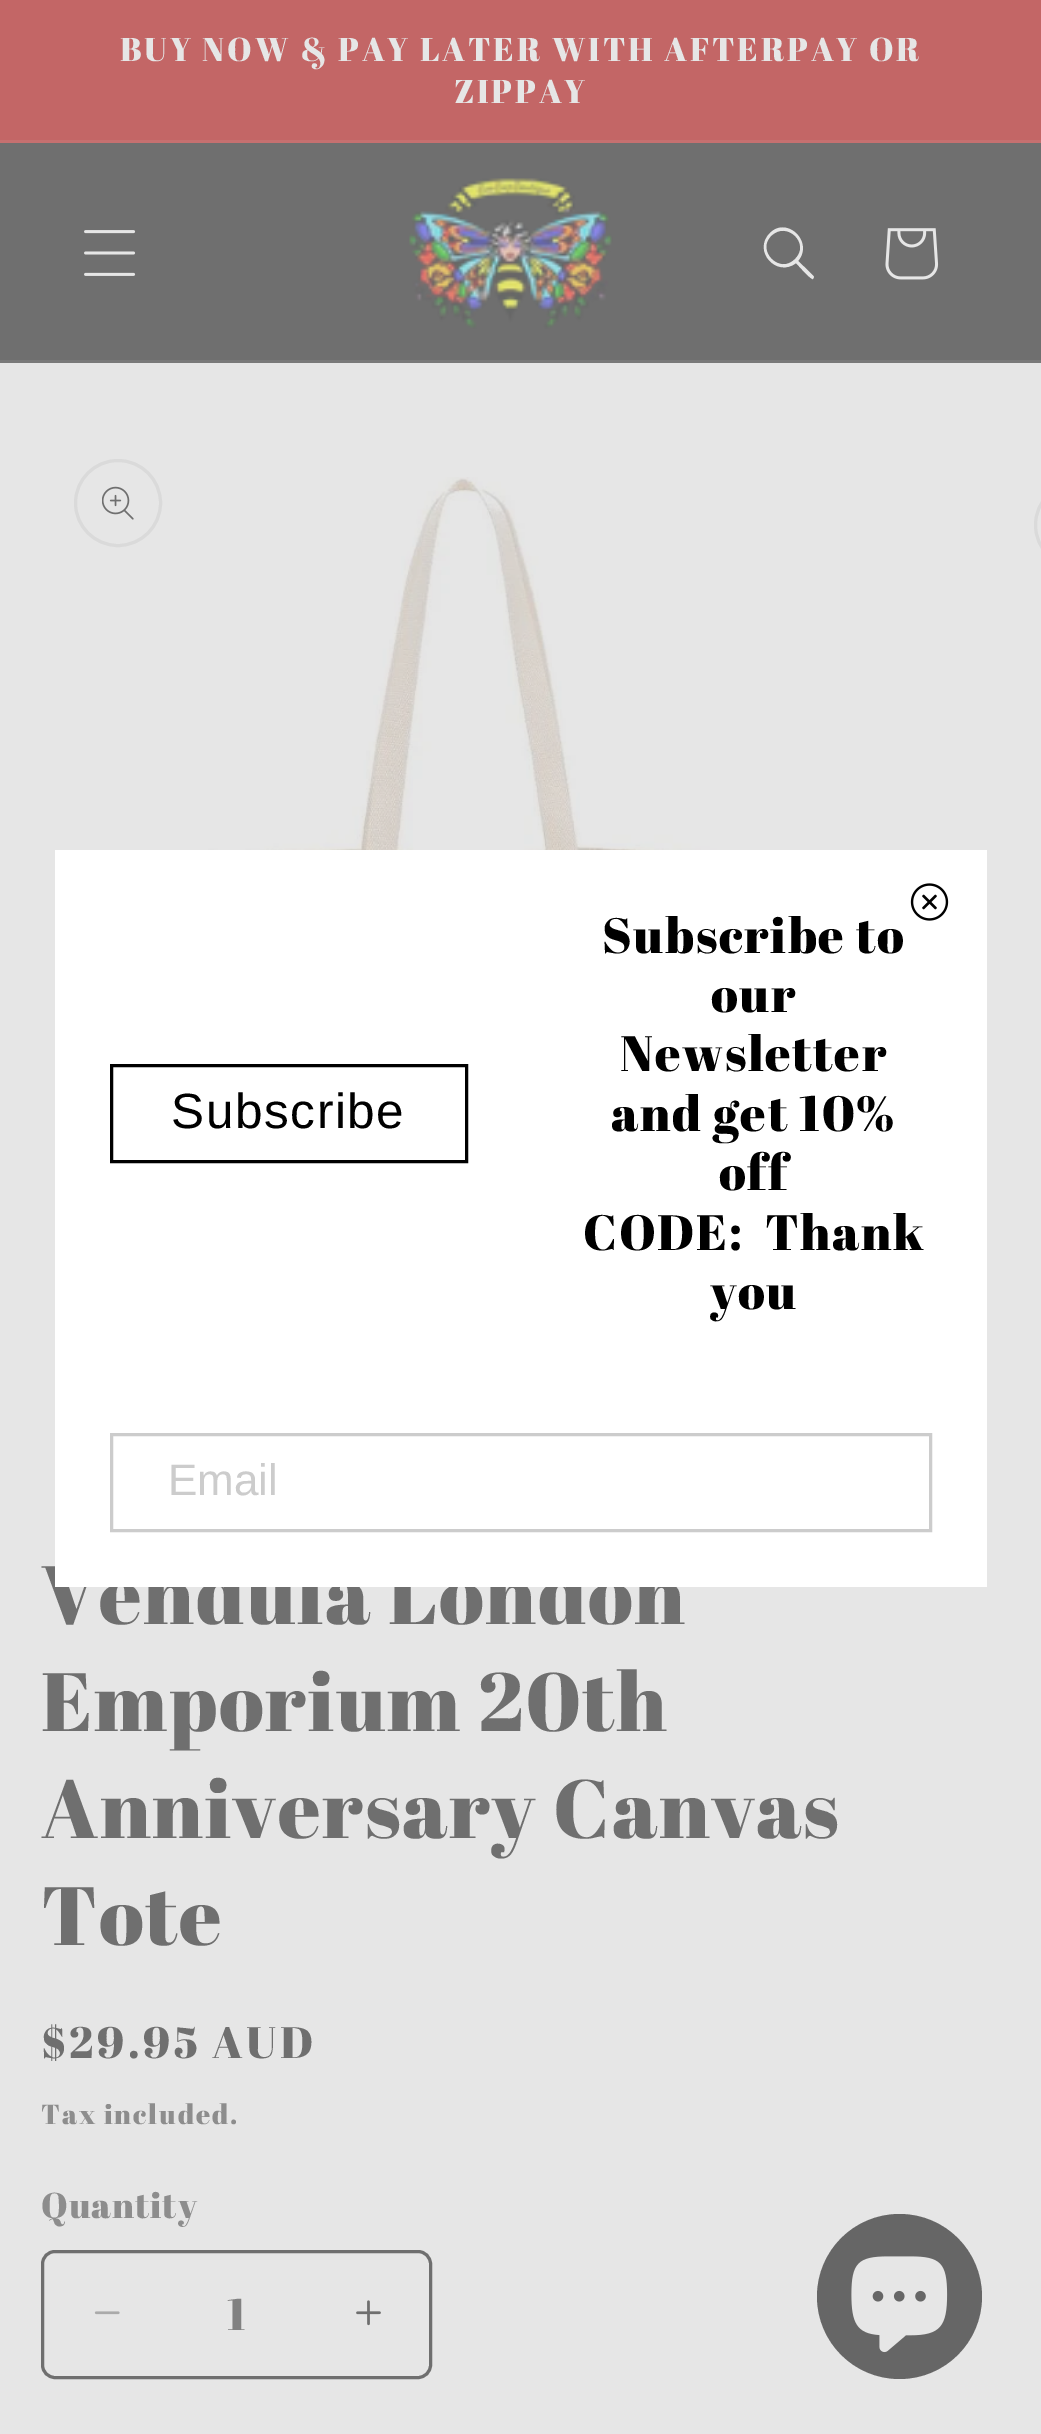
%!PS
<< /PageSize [1041 2434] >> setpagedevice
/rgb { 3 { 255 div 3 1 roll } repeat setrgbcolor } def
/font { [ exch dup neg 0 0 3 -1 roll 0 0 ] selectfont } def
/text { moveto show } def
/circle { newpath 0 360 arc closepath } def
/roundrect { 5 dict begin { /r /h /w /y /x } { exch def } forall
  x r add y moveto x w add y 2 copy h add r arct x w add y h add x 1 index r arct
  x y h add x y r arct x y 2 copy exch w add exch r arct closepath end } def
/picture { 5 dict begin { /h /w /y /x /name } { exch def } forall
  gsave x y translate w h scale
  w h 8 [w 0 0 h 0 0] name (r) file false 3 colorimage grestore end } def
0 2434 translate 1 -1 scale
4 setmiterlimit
230 230 230 rgb
0 0 1041 2434 rectfill
195 102 102 rgb
0 0 1041 140 rectfill
198 112 112 rgb
0 140 1041 3 rectfill
111 111 111 rgb
0 143 1041 217 rectfill
121 121 121 rgb
0 360 1041 3 rectfill
(img_01.rgb) 84 230 52 46 picture
(img_02.rgb) 409 178 204 151 picture
230 230 230 rgb
795 259 moveto -15 16 -39 -8 -24 -23 rcurveto 16 -16 40 8 24 23 rcurveto closepath 796 263 moveto -19 15 -44 -12 -26 -30 rcurveto 17 -17 44 9 28 28 rcurveto 2 2 16 15 16 16 rcurveto -1 2 rlineto -2 1 -15 -14 -17 -16 rcurveto closepath eofill
(img_03.rgb) 885 228 54 52 picture
218 218 218 rgb
3 setlinewidth
118 503 42.5 circle stroke
(img_05.rgb) 102 486 32 34 picture
(img_06.rgb) 181 477 584 373 picture
1035.5 482.5 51 85 42.5 roundrect stroke
(img_07.rgb) 94 2311 26 4 picture
(img_08.rgb) 356 2300 25 26 picture
111 111 111 rgb
42.5 2251.5 388 126 12.5 roundrect stroke
102 102 102 rgb
899.5 2296.5 82.5 circle fill
(img_09.rgb) 851 2256 97 97 picture
/AbrilFatface-Regular 33 font
230 230 230 rgb
120 61 moveto 2.75 0 (BUY NOW & PAY LATER WITH AFTERPAY OR) ashow
454 103 moveto 2.75 0 (ZIPPAY) ashow
/AbrilFatface-Regular 82.5 font
111 111 111 rgb
41 1624 moveto 1.6 0 (Vendula London) ashow
255 255 255 rgb
55 850 932 737 rectfill
(img_04.rgb) 910 883 39 38 picture
/AbrilFatface-Regular 49.5 font
0 0 0 rgb
710 1309 moveto 1.6 0 (you) ashow
583 1250 moveto 1.6 0 (CODE:  Thank) ashow
719 1190 moveto 1.6 0 (off) ashow
611 1131 moveto 1.6 0 (and get 10%) ashow
620 1071 moveto 1.6 0 (Newsletter) ashow
711 1012 moveto 1.6 0 (our) ashow
602 953 moveto 1.6 0 (Subscribe to) ashow
111.5 1065.5 355 96 rectstroke
/LiberationSans-Regular 49.5 font
171 1128 moveto 1.6 0 (Subscribe) ashow
204 204 204 rgb
111.5 1434.5 819 96 rectstroke
/LiberationSans-Regular 44 font
(Email) 168 1495 text
/AbrilFatface-Regular 82.5 font
111 111 111 rgb
41 1731 moveto 1.6 0 (Emporium 20th) ashow
41 1838 moveto 1.6 0 (Anniversary Canvas) ashow
41 1945 moveto 1.6 0 (Tote) ashow
/AbrilFatface-Regular 44 font
41 2058 moveto 3.5 0 ($29.95 AUD) ashow
/AbrilFatface-Regular 27.5 font
141 141 141 rgb
41 2124 moveto 1.9 0 (Tax included.) ashow
/AbrilFatface-Regular 35.75 font
41 2218 moveto 1 0 (Quantity) ashow
/AbrilFatface-Regular 44 font
129 129 129 rgb
(1) 227 2330 text
showpage
